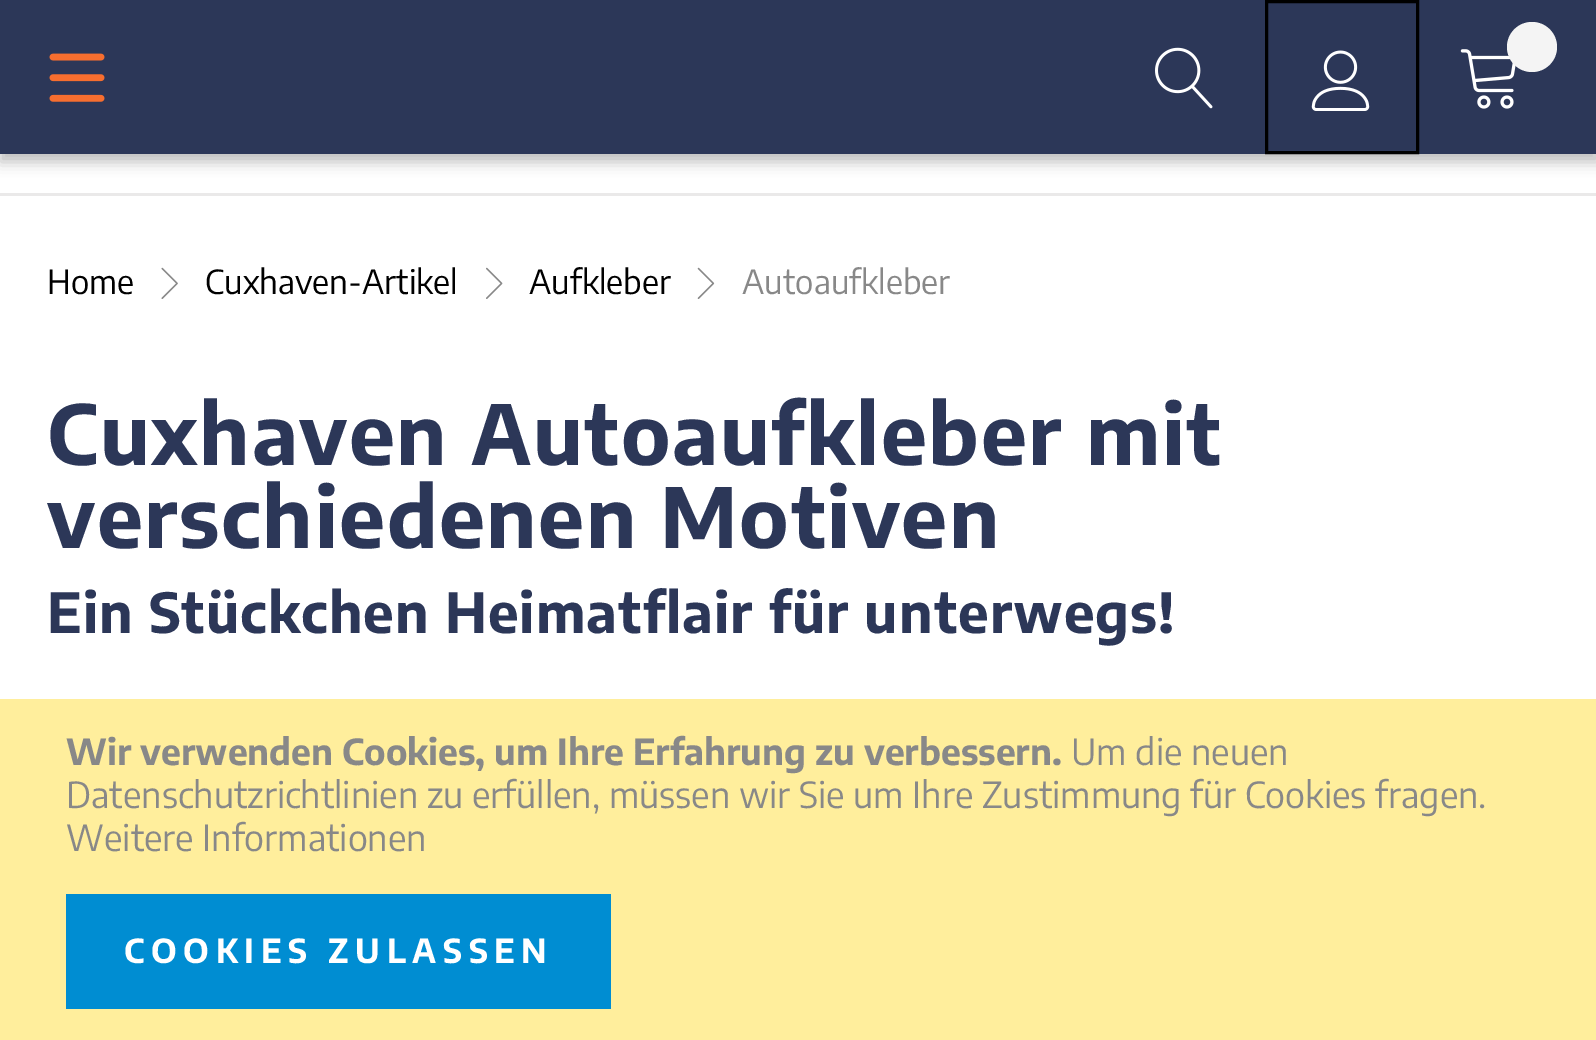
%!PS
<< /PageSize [1596 1040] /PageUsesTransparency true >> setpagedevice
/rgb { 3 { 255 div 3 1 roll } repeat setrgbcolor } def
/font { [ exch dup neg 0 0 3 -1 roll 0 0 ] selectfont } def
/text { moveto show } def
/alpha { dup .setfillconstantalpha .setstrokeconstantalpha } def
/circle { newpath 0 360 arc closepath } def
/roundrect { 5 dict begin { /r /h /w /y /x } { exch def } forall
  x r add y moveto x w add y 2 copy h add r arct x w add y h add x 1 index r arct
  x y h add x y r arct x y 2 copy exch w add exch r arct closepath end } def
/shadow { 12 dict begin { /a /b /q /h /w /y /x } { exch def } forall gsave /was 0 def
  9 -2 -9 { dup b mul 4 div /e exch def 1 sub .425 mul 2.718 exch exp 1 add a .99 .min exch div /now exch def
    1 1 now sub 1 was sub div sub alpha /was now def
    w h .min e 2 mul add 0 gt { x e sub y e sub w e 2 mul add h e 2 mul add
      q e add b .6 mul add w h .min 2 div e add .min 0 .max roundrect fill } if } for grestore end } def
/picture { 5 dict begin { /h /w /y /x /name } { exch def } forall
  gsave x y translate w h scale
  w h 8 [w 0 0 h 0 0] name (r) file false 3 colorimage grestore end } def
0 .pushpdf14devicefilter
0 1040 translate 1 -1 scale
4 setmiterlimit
255 255 255 rgb
0 0 1596 1040 rectfill
234 233 233 rgb
0 193 1596 3 rectfill
0 0 0 rgb
0 8 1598 154 0 7 0.25 shadow
44 55 88 rgb
0 0 1596 154 rectfill
(img_01.rgb) 1155 47 58 62 picture
(img_02.rgb) 49 53 56 49 picture
0 0 0 rgb
3 setlinewidth
1266.5 1.5 151 151 rectstroke
(img_03.rgb) 1311 50 59 61 picture
(img_04.rgb) 1460 49 56 60 picture
244 244 244 rgb
1532 47 25 circle fill
(img_05.rgb) 161 267 17 32 picture
(img_06.rgb) 486 267 17 32 picture
(img_07.rgb) 697 267 18 32 picture
255 238 156 rgb
0 699 1596 341 rectfill
0 141 210 rgb
66 894 545 115 rectfill
/EncodeSans-Regular 33 font
0 0 0 rgb
(Home) 47 294 text
(Cuxhaven-Artikel) 205 294 text
(Aufkleber) 529 294 text
136 136 136 rgb
(Autoaufkleber) 742 294 text
/EncodeSans-Bold 82.5 font
44 55 88 rgb
47 465 moveto 1.65 0 (Cuxhaven Autoaufkleber mit) ashow
47 548 moveto 1.65 0 (verschiedenen Motiven) ashow
/EncodeSans-Bold 55 font
47 633 moveto 1.1 0 (Ein Stückchen Heimatflair für unterwegs!) ashow
/EncodeSans-Bold 35.75 font
136 136 136 rgb
(Wir verwenden Cookies, um Ihre Erfahrung zu verbessern.) 66 765 text
/EncodeSans-Regular 35.75 font
(Um die neuen) 1071 765 text
(Datenschutzrichtlinien zu erfüllen, müssen wir Sie um Ihre Zustimmung für Cookies fragen.) 66 808 text
(Weitere Informationen) 66 851 text
/EncodeSans-Bold 33 font
255 255 255 rgb
124 963 moveto 6.6 0 (COOKIES ZULASSEN) ashow
.poppdf14devicefilter showpage
